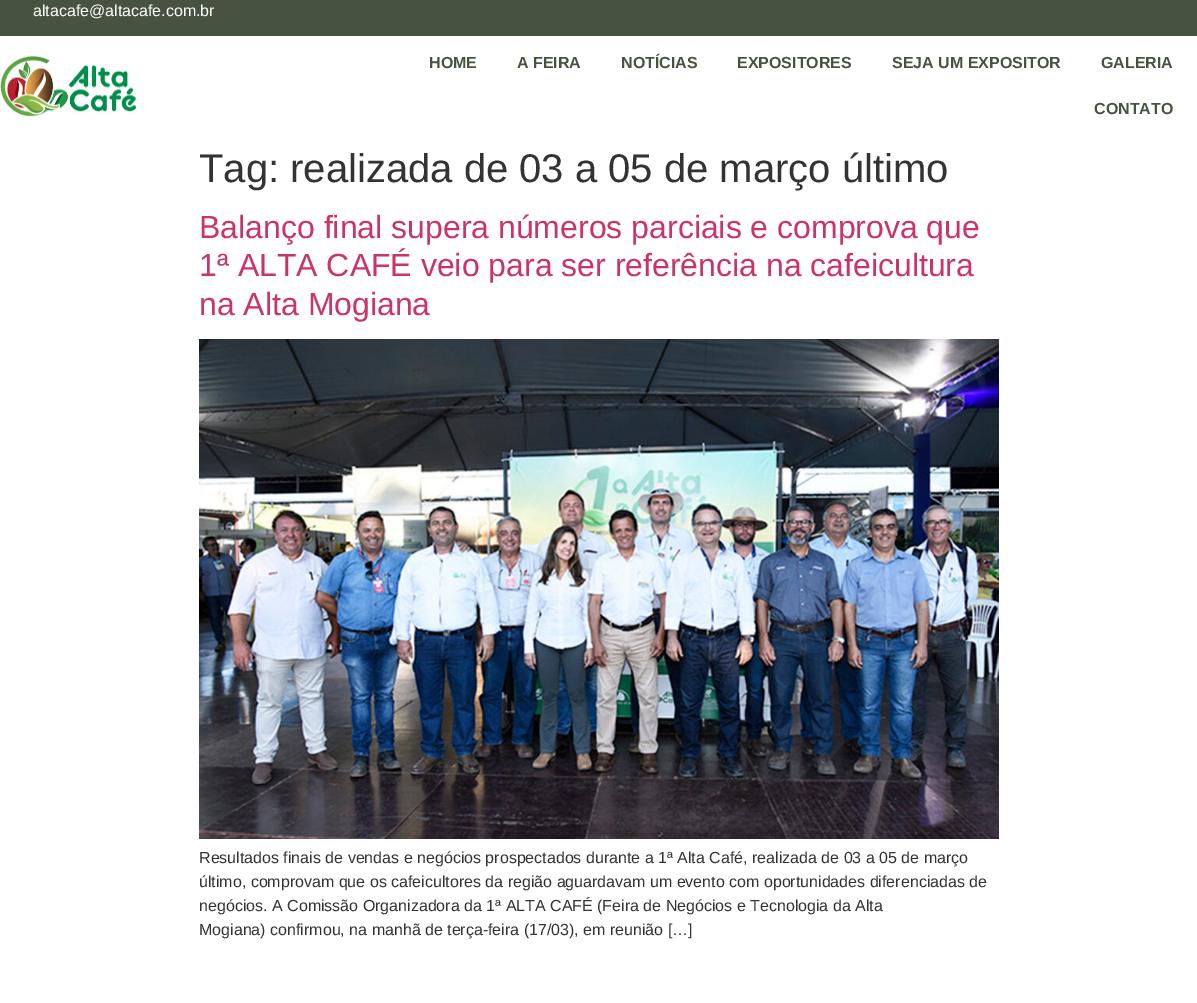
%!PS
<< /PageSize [1197 1003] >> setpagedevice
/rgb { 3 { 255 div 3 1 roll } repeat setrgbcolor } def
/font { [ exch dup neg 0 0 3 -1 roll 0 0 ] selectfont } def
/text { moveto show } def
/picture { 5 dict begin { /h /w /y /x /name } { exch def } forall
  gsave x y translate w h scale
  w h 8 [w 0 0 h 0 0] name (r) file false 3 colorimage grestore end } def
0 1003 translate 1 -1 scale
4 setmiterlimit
255 255 255 rgb
0 0 1197 1003 rectfill
71 83 64 rgb
0 0 1197 36 rectfill
(img_01.rgb) 0 55 138 62 picture
(img_02.rgb) 199 339 800 500 picture
/LiberationSans-Regular 16 font
255 255 255 rgb
(altacafe@altacafe.com.br) 33 16 text
/LiberationSans-Bold 16 font
71 83 64 rgb
(HOME) 429 68 text
(A FEIRA) 517 68 text
(NOTÍCIAS) 621 68 text
(EXPOSITORES) 737 68 text
(SEJA UM EXPOSITOR) 892 68 text
(GALERIA) 1101 68 text
(CONTATO) 1094 114 text
/LiberationSans-Regular 40 font
51 51 51 rgb
(Tag: realizada de 03 a 05 de março último) 199 182 text
/LiberationSans-Regular 32 font
204 51 102 rgb
(Balanço final supera números parciais e comprova que) 199 238 text
(1ª ALTA CAFÉ veio para ser referência na cafeicultura) 199 276 text
(na Alta Mogiana) 199 315 text
/LiberationSans-Regular 16 font
51 51 51 rgb
(Resultados finais de vendas e negócios prospectados durante a 1ª Alta Café, realizada de 03 a 05 de março) 199 863 text
(último, comprovam que os cafeicultores da região aguardavam um evento com oportunidades diferenciadas de) 199 887 text
(negócios. A Comissão Organizadora da 1ª ALTA CAFÉ \(Feira de Negócios e Tecnologia da Alta) 199 911 text
(Mogiana\) confirmou, na manhã de terça-feira \(17/03\), em reunião […]) 199 935 text
showpage
